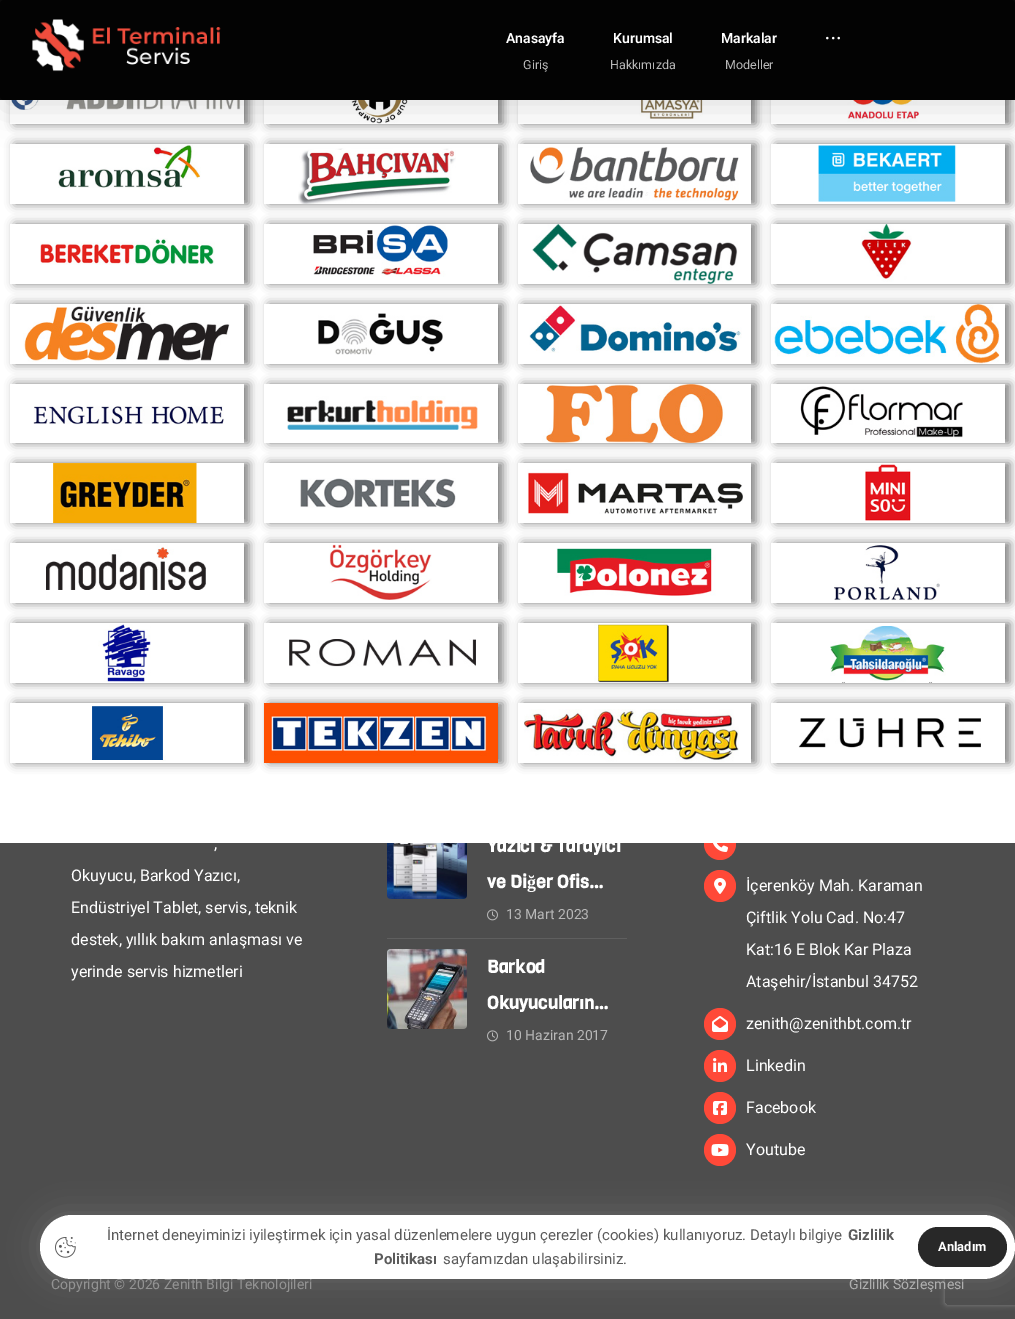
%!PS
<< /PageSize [1015 1319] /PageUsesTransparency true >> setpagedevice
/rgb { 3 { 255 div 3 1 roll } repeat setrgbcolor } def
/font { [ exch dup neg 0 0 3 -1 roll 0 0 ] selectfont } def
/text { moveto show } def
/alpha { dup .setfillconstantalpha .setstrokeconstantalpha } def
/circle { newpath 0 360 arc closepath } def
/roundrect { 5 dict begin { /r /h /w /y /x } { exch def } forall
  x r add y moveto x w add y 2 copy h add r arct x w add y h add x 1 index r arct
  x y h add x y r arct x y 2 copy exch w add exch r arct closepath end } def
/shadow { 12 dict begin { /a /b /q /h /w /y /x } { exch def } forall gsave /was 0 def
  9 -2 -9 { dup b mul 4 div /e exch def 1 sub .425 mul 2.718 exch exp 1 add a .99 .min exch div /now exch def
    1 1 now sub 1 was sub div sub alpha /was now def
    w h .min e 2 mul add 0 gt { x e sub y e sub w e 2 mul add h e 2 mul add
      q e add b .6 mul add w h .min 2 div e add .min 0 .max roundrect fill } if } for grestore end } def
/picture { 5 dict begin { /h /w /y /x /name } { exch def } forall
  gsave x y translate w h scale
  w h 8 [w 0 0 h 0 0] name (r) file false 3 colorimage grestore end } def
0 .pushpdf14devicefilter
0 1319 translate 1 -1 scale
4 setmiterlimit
77 77 77 rgb
0 0 1015 1319 rectfill
255 73 56 rgb
720 844 16 circle fill
255 255 255 rgb
0 100 1015 743 rectfill
gsave
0 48 moveto 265 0 rlineto 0 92 rlineto -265 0 rlineto closepath 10 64 moveto 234 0 rlineto 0 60 rlineto -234 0 rlineto closepath eoclip newpath
0 0 0 rgb
15 64 234 60 0 5 0.5 shadow
grestore
(img_03.rgb) 10 100 231 10 picture
gsave
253 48 moveto 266 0 rlineto 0 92 rlineto -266 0 rlineto closepath 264 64 moveto 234 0 rlineto 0 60 rlineto -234 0 rlineto closepath eoclip newpath
0 0 0 rgb
269 64 234 60 0 5 0.5 shadow
grestore
(img_04.rgb) 351 100 57 24 picture
gsave
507 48 moveto 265 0 rlineto 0 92 rlineto -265 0 rlineto closepath 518 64 moveto 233 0 rlineto 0 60 rlineto -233 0 rlineto closepath eoclip newpath
0 0 0 rgb
523 64 233 60 0 5 0.5 shadow
grestore
(img_05.rgb) 559 100 144 19 picture
gsave
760 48 moveto 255 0 rlineto 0 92 rlineto -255 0 rlineto closepath 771 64 moveto 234 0 rlineto 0 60 rlineto -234 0 rlineto closepath eoclip newpath
0 0 0 rgb
776 64 234 60 0 5 0.5 shadow
grestore
(img_06.rgb) 847 100 72 22 picture
gsave
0 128 moveto 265 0 rlineto 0 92 rlineto -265 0 rlineto closepath 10 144 moveto 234 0 rlineto 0 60 rlineto -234 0 rlineto closepath eoclip newpath
0 0 0 rgb
15 144 234 60 0 5 0.5 shadow
grestore
(img_07.rgb) 58 144 143 44 picture
gsave
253 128 moveto 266 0 rlineto 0 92 rlineto -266 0 rlineto closepath 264 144 moveto 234 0 rlineto 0 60 rlineto -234 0 rlineto closepath eoclip newpath
0 0 0 rgb
269 144 234 60 0 5 0.5 shadow
grestore
(img_08.rgb) 298 148 158 56 picture
gsave
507 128 moveto 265 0 rlineto 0 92 rlineto -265 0 rlineto closepath 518 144 moveto 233 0 rlineto 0 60 rlineto -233 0 rlineto closepath eoclip newpath
0 0 0 rgb
523 144 233 60 0 5 0.5 shadow
grestore
(img_09.rgb) 530 147 209 54 picture
gsave
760 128 moveto 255 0 rlineto 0 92 rlineto -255 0 rlineto closepath 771 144 moveto 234 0 rlineto 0 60 rlineto -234 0 rlineto closepath eoclip newpath
0 0 0 rgb
776 144 234 60 0 5 0.5 shadow
grestore
(img_10.rgb) 818 145 139 57 picture
0 0 0 rgb
1 10 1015 100 0 17 0.11 shadow
10 10 10 rgb
0 0 1015 100 rectfill
3 3 3 rgb
0 0 1015 100 4 roundrect fill
(img_01.rgb) 32 19 189 53 picture
(img_02.rgb) 826 36 14 4 picture
gsave
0 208 moveto 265 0 rlineto 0 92 rlineto -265 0 rlineto closepath 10 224 moveto 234 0 rlineto 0 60 rlineto -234 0 rlineto closepath eoclip newpath
0 0 0 rgb
15 224 234 60 0 5 0.5 shadow
grestore
(img_11.rgb) 40 238 175 27 picture
gsave
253 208 moveto 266 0 rlineto 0 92 rlineto -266 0 rlineto closepath 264 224 moveto 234 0 rlineto 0 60 rlineto -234 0 rlineto closepath eoclip newpath
0 0 0 rgb
269 224 234 60 0 5 0.5 shadow
grestore
(img_12.rgb) 313 224 135 53 picture
gsave
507 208 moveto 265 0 rlineto 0 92 rlineto -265 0 rlineto closepath 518 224 moveto 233 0 rlineto 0 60 rlineto -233 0 rlineto closepath eoclip newpath
0 0 0 rgb
523 224 233 60 0 5 0.5 shadow
grestore
(img_13.rgb) 532 224 206 60 picture
gsave
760 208 moveto 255 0 rlineto 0 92 rlineto -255 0 rlineto closepath 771 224 moveto 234 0 rlineto 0 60 rlineto -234 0 rlineto closepath eoclip newpath
0 0 0 rgb
776 224 234 60 0 5 0.5 shadow
grestore
(img_14.rgb) 861 224 51 58 picture
gsave
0 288 moveto 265 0 rlineto 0 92 rlineto -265 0 rlineto closepath 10 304 moveto 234 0 rlineto 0 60 rlineto -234 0 rlineto closepath eoclip newpath
0 0 0 rgb
15 304 234 60 0 5 0.5 shadow
grestore
(img_15.rgb) 23 304 207 58 picture
gsave
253 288 moveto 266 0 rlineto 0 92 rlineto -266 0 rlineto closepath 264 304 moveto 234 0 rlineto 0 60 rlineto -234 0 rlineto closepath eoclip newpath
0 0 0 rgb
269 304 234 60 0 5 0.5 shadow
grestore
(img_16.rgb) 318 313 125 42 picture
gsave
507 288 moveto 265 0 rlineto 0 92 rlineto -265 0 rlineto closepath 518 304 moveto 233 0 rlineto 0 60 rlineto -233 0 rlineto closepath eoclip newpath
0 0 0 rgb
523 304 233 60 0 5 0.5 shadow
grestore
(img_17.rgb) 529 304 213 49 picture
gsave
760 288 moveto 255 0 rlineto 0 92 rlineto -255 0 rlineto closepath 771 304 moveto 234 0 rlineto 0 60 rlineto -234 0 rlineto closepath eoclip newpath
0 0 0 rgb
776 304 234 60 0 5 0.5 shadow
grestore
(img_18.rgb) 771 304 229 60 picture
gsave
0 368 moveto 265 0 rlineto 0 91 rlineto -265 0 rlineto closepath 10 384 moveto 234 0 rlineto 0 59 rlineto -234 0 rlineto closepath eoclip newpath
0 0 0 rgb
15 384 234 59 0 5 0.5 shadow
grestore
(img_19.rgb) 33 405 191 20 picture
gsave
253 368 moveto 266 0 rlineto 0 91 rlineto -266 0 rlineto closepath 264 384 moveto 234 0 rlineto 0 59 rlineto -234 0 rlineto closepath eoclip newpath
0 0 0 rgb
269 384 234 59 0 5 0.5 shadow
grestore
(img_20.rgb) 287 396 191 34 picture
gsave
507 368 moveto 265 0 rlineto 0 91 rlineto -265 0 rlineto closepath 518 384 moveto 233 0 rlineto 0 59 rlineto -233 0 rlineto closepath eoclip newpath
0 0 0 rgb
523 384 233 59 0 5 0.5 shadow
grestore
(img_21.rgb) 542 384 183 59 picture
gsave
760 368 moveto 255 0 rlineto 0 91 rlineto -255 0 rlineto closepath 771 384 moveto 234 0 rlineto 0 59 rlineto -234 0 rlineto closepath eoclip newpath
0 0 0 rgb
776 384 234 59 0 5 0.5 shadow
grestore
(img_22.rgb) 800 386 163 52 picture
gsave
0 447 moveto 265 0 rlineto 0 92 rlineto -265 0 rlineto closepath 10 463 moveto 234 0 rlineto 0 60 rlineto -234 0 rlineto closepath eoclip newpath
0 0 0 rgb
15 463 234 60 0 5 0.5 shadow
grestore
(img_23.rgb) 53 463 144 60 picture
gsave
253 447 moveto 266 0 rlineto 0 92 rlineto -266 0 rlineto closepath 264 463 moveto 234 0 rlineto 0 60 rlineto -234 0 rlineto closepath eoclip newpath
0 0 0 rgb
269 463 234 60 0 5 0.5 shadow
grestore
(img_24.rgb) 300 478 156 30 picture
gsave
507 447 moveto 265 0 rlineto 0 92 rlineto -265 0 rlineto closepath 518 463 moveto 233 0 rlineto 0 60 rlineto -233 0 rlineto closepath eoclip newpath
0 0 0 rgb
523 463 233 60 0 5 0.5 shadow
grestore
(img_25.rgb) 527 469 216 45 picture
gsave
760 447 moveto 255 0 rlineto 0 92 rlineto -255 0 rlineto closepath 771 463 moveto 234 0 rlineto 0 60 rlineto -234 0 rlineto closepath eoclip newpath
0 0 0 rgb
776 463 234 60 0 5 0.5 shadow
grestore
(img_26.rgb) 865 464 46 57 picture
gsave
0 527 moveto 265 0 rlineto 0 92 rlineto -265 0 rlineto closepath 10 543 moveto 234 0 rlineto 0 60 rlineto -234 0 rlineto closepath eoclip newpath
0 0 0 rgb
15 543 234 60 0 5 0.5 shadow
grestore
(img_27.rgb) 46 544 160 46 picture
gsave
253 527 moveto 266 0 rlineto 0 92 rlineto -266 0 rlineto closepath 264 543 moveto 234 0 rlineto 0 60 rlineto -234 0 rlineto closepath eoclip newpath
0 0 0 rgb
269 543 234 60 0 5 0.5 shadow
grestore
(img_28.rgb) 329 544 103 56 picture
gsave
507 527 moveto 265 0 rlineto 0 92 rlineto -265 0 rlineto closepath 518 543 moveto 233 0 rlineto 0 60 rlineto -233 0 rlineto closepath eoclip newpath
0 0 0 rgb
523 543 233 60 0 5 0.5 shadow
grestore
(img_29.rgb) 556 548 160 48 picture
gsave
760 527 moveto 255 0 rlineto 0 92 rlineto -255 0 rlineto closepath 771 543 moveto 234 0 rlineto 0 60 rlineto -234 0 rlineto closepath eoclip newpath
0 0 0 rgb
776 543 234 60 0 5 0.5 shadow
grestore
(img_30.rgb) 834 545 106 56 picture
gsave
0 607 moveto 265 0 rlineto 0 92 rlineto -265 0 rlineto closepath 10 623 moveto 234 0 rlineto 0 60 rlineto -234 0 rlineto closepath eoclip newpath
0 0 0 rgb
15 623 234 60 0 5 0.5 shadow
grestore
(img_31.rgb) 98 624 53 58 picture
gsave
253 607 moveto 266 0 rlineto 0 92 rlineto -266 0 rlineto closepath 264 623 moveto 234 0 rlineto 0 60 rlineto -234 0 rlineto closepath eoclip newpath
0 0 0 rgb
269 623 234 60 0 5 0.5 shadow
grestore
(img_32.rgb) 289 639 187 28 picture
gsave
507 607 moveto 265 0 rlineto 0 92 rlineto -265 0 rlineto closepath 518 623 moveto 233 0 rlineto 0 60 rlineto -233 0 rlineto closepath eoclip newpath
0 0 0 rgb
523 623 233 60 0 5 0.5 shadow
grestore
(img_33.rgb) 594 623 75 60 picture
gsave
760 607 moveto 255 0 rlineto 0 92 rlineto -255 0 rlineto closepath 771 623 moveto 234 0 rlineto 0 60 rlineto -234 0 rlineto closepath eoclip newpath
0 0 0 rgb
776 623 234 60 0 5 0.5 shadow
grestore
(img_34.rgb) 830 626 116 57 picture
gsave
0 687 moveto 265 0 rlineto 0 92 rlineto -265 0 rlineto closepath 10 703 moveto 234 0 rlineto 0 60 rlineto -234 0 rlineto closepath eoclip newpath
0 0 0 rgb
15 703 234 60 0 5 0.5 shadow
grestore
(img_35.rgb) 92 703 74 58 picture
0 0 0 rgb
269 703 234 60 0 5 0.5 shadow
(img_36.rgb) 264 703 234 60 picture
gsave
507 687 moveto 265 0 rlineto 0 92 rlineto -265 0 rlineto closepath 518 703 moveto 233 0 rlineto 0 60 rlineto -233 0 rlineto closepath eoclip newpath
523 703 233 60 0 5 0.5 shadow
grestore
(img_37.rgb) 524 709 215 53 picture
gsave
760 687 moveto 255 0 rlineto 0 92 rlineto -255 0 rlineto closepath 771 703 moveto 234 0 rlineto 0 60 rlineto -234 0 rlineto closepath eoclip newpath
776 703 234 60 0 5 0.5 shadow
grestore
(img_38.rgb) 798 718 183 30 picture
95 95 95 rgb
387 938 240 1 rectfill
(img_39.rgb) 387 843 80 56 picture
(img_40.rgb) 487 909 11 12 picture
(img_41.rgb) 387 949 80 80 picture
(img_40.rgb) 487 1030 11 12 picture
(img_42.rgb) 713 843 15 9 picture
255 73 56 rgb
720 886 16 circle fill
(img_43.rgb) 714 878 12 16 picture
720 1024 16 circle fill
(img_44.rgb) 712 1016 16 16 picture
720 1066 16 circle fill
(img_45.rgb) 713 1058 14 14 picture
720 1108 16 circle fill
(img_46.rgb) 713 1101 14 14 picture
720 1150 16 circle fill
(img_47.rgb) 711 1144 18 12 picture
138 138 138 rgb
40 1215 975 64 32 15 0.44 shadow
gsave
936 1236 moveto 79 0 rlineto 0 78 rlineto -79 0 rlineto closepath 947 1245 moveto 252 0 rlineto 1 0 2 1 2 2 rcurveto 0 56 rlineto 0 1 -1 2 -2 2 rcurveto -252 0 rlineto -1 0 -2 -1 -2 -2 rcurveto 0 -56 rlineto 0 -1 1 -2 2 -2 rcurveto closepath eoclip newpath
128 128 128 rgb
945 1245 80 60 2 2.5 1 shadow
grestore
/Roboto-SemiBold 14 font
255 255 255 rgb
(Anasayfa) 506 43 text
/Roboto-Regular 12.5 font
184 184 184 rgb
(Giriş) 523 69 text
/Roboto-SemiBold 14 font
255 255 255 rgb
(Kurumsal) 613 43 text
/Roboto-Regular 12.5 font
184 184 184 rgb
(Hakkımızda) 610 69 text
/Roboto-SemiBold 14 font
255 255 255 rgb
(Markalar) 721 43 text
/Roboto-Regular 12.5 font
184 184 184 rgb
(Modeller) 725 69 text
/Roboto-Regular 16 font
255 255 255 rgb
(,) 214 849 text
(Okuyucu, Barkod Yazıcı,) 71 881 text
(Endüstriyel Tablet, servis, teknik) 71 913 text
(destek, yıllık bakım anlaşması ve) 71 945 text
(yerinde servis hizmetleri) 71 977 text
/Viga-Bold 18 font
(Yazıcı & Tarayıcı) 487 852 text
(ve Di) 487 888 text
/LiberationSerif-Bold 18 font
(ğ) 527 888 text
/Viga-Bold 18 font
(er Ofis…) 536 888 text
/Roboto-Regular 14 font
184 184 184 rgb
(13 Mart 2023) 506 919 text
/Viga-Bold 18 font
255 255 255 rgb
(Barkod) 487 973 text
(Okuyucuların…) 487 1009 text
/Roboto-Regular 14 font
184 184 184 rgb
(10 Haziran 2017) 506 1040 text
/Roboto-Regular 16 font
255 255 255 rgb
(İçerenköy Mah. Karaman) 746 891 text
(Çiftlik Yolu Cad. No:47) 746 923 text
(Kat:16 E Blok Kar Plaza) 746 955 text
(Ataşehir/İstanbul 34752) 746 987 text
(zenith@zenithbt.com.tr) 746 1029 text
(Linkedin) 746 1071 text
(Facebook) 746 1113 text
(Youtube) 746 1155 text
/Roboto-Regular 14 font
147 147 147 rgb
(Copyright © 2026 Zenith Bilgi Teknolojileri) 51 1289 text
175 175 175 rgb
(Gizlilik Sözleşmesi) 849 1289 text
255 255 255 rgb
40 1215 975 64 32 roundrect fill
(img_48.rgb) 55 1237 21 21 picture
/Roboto-Regular 15 font
91 91 91 rgb
(İnternet deneyiminizi iyileştirmek için yasal düzenlemelere uygun çerezler \(cookies\) kullanıyoruz. Detaylı bilgiye) 107 1240 text
/Roboto-Bold 15 font
(Gizlilik) 848 1240 text
(Politikası) 374 1264 text
/Roboto-Regular 15 font
(sayfamızdan ulaşabilirsiniz.) 443 1264 text
40 40 40 rgb
918 1227 89 40 20 roundrect fill
/Roboto-Bold 13 font
255 255 255 rgb
(Anladım) 938 1251 text
.poppdf14devicefilter showpage
